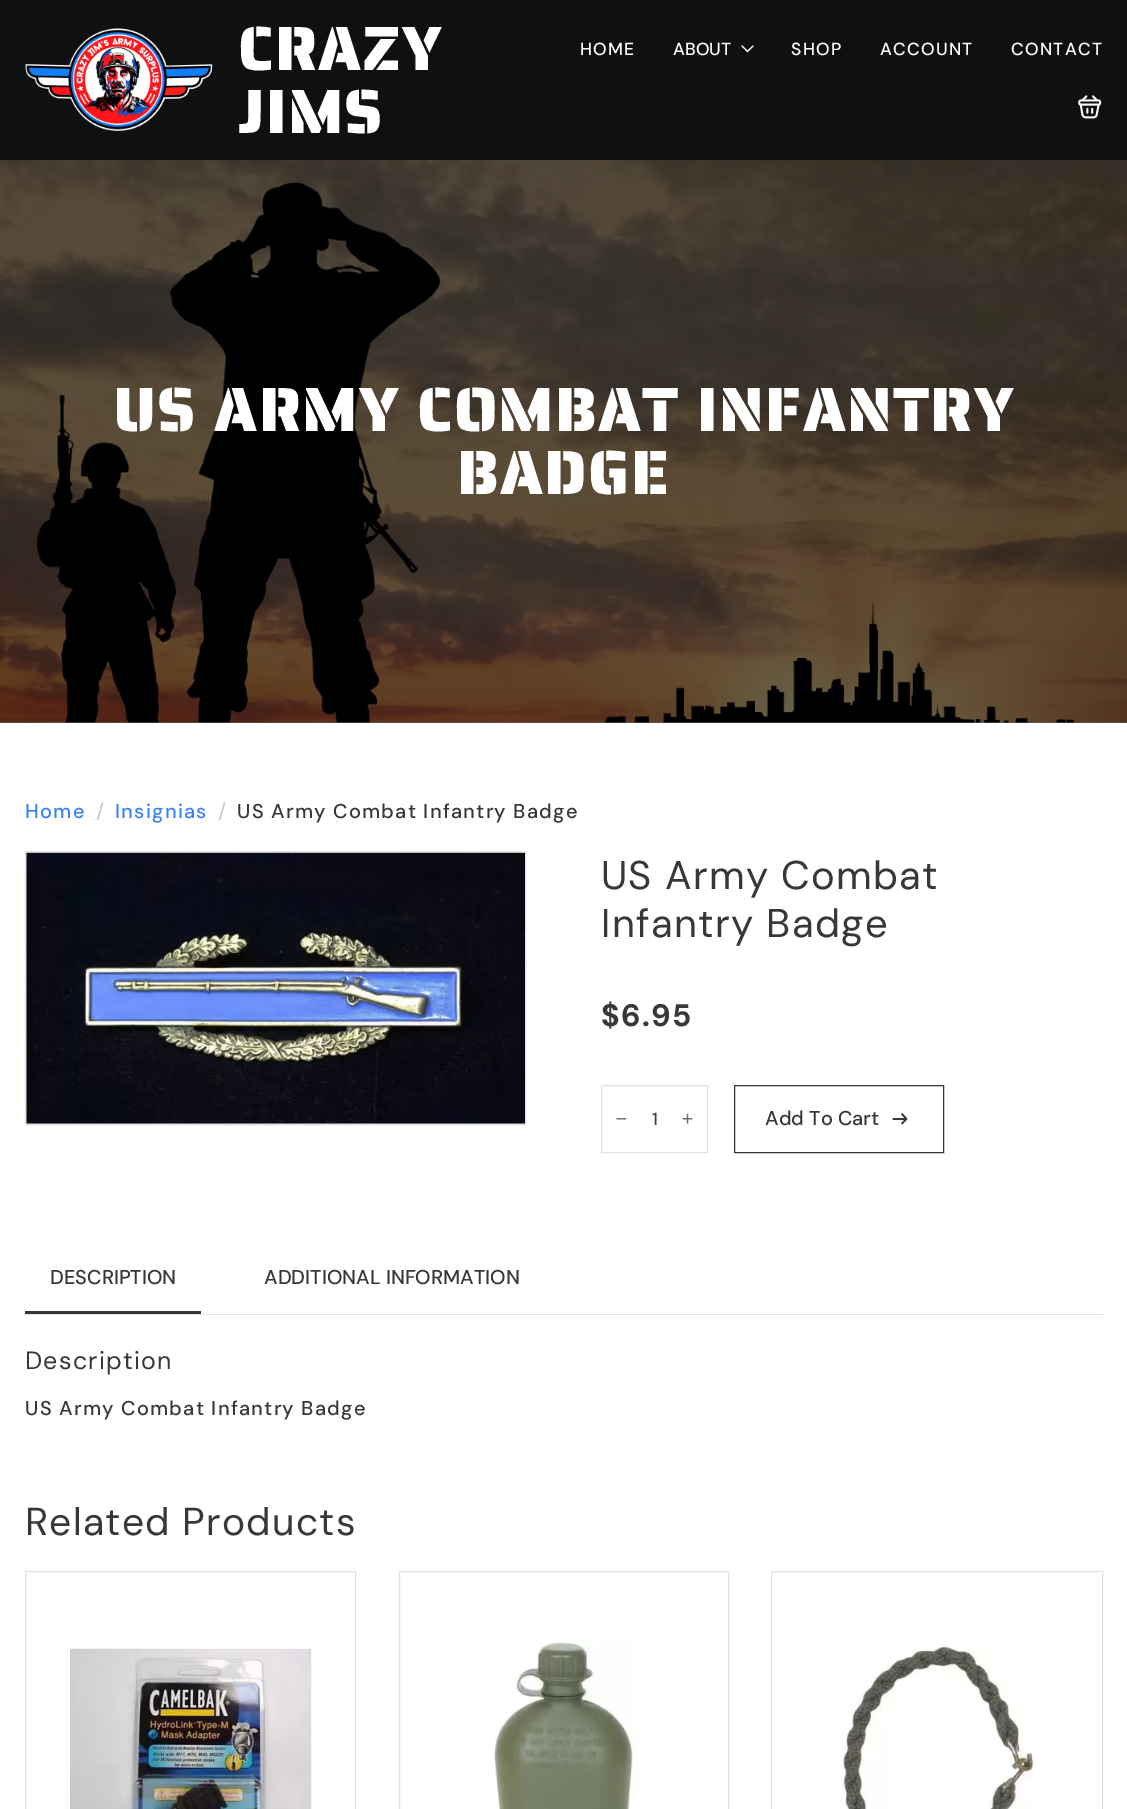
%!PS
<< /PageSize [1127 1809] >> setpagedevice
/rgb { 3 { 255 div 3 1 roll } repeat setrgbcolor } def
/font { [ exch dup neg 0 0 3 -1 roll 0 0 ] selectfont } def
/text { moveto show } def
/picture { 5 dict begin { /h /w /y /x /name } { exch def } forall
  gsave x y translate w h scale
  w h 8 [w 0 0 h 0 0] name (r) file false 3 colorimage grestore end } def
0 1809 translate 1 -1 scale
4 setmiterlimit
255 255 255 rgb
0 0 1127 1809 rectfill
102 102 102 rgb
0 722 1127 1 rectfill
15 16 17 rgb
0 0 1127 160 rectfill
(img_01.rgb) 25 28 188 103 picture
(img_02.rgb) 741 45 13 8 picture
(img_03.rgb) 1078 95 24 24 picture
(img_04.rgb) 0 160 1127 563 picture
225 225 225 rgb
25.5 851.5 500 273 rectstroke
(img_05.rgb) 26 852 499 272 picture
601.5 1085.5 106 67 rectstroke
(img_06.rgb) 616 1118 11 2 picture
(img_07.rgb) 682 1113 11 11 picture
56 55 58 rgb
734.5 1085.5 209 67 rectstroke
1.7 setlinewidth
1 setlinecap
1 setlinejoin
902 1114 moveto 4.5 5 rlineto -4.5 4.5 rlineto 893.5 1119 moveto 12.5 0 rlineto stroke
225 225 225 rgb
25 1314 1078 1 rectfill
56 55 58 rgb
25 1311 176 3 rectfill
225 225 225 rgb
1 setlinewidth
0 setlinecap
0 setlinejoin
25.5 1571.5 330 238 rectstroke
(img_08.rgb) 70 1648 242 161 picture
399.5 1571.5 329 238 rectstroke
(img_09.rgb) 494 1639 144 170 picture
771.5 1571.5 331 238 rectstroke
(img_10.rgb) 842 1645 193 164 picture
/SairaStencilOne-Regular 62.5 font
255 255 255 rgb
238 70 moveto 1.25 0 (CRAZY) ashow
238 133 moveto 1.25 0 (JIMS) ashow
/DMSans-Medium 17.5 font
580 55 moveto 1.25 0 (HOME) ashow
(ABOUT) 673 55 text
791 55 moveto 1.25 0 (SHOP) ashow
880 55 moveto 1.25 0 (ACCOUNT) ashow
1011 55 moveto 1.25 0 (CONTACT) ashow
/SairaStencilOne-Regular 62.5 font
113 431 moveto 1.25 0 (US ARMY COMBAT INFANTRY) ashow
457 494 moveto 1.25 0 (BADGE) ashow
/DMSans-Medium 20 font
59 130 246 rgb
25 818 moveto 1.25 0 (Home) ashow
204 204 204 rgb
96 818 moveto 1.25 0 (/) ashow
59 130 246 rgb
115 818 moveto 1.25 0 (Insignias) ashow
204 204 204 rgb
218 818 moveto 1.25 0 (/) ashow
56 55 58 rgb
237 818 moveto 1.25 0 (US Army Combat Infantry Badge) ashow
/DMSans-Regular 40 font
601 889 moveto 1.25 0 (US Army Combat) ashow
601 937 moveto 1.25 0 (Infantry Badge) ashow
/DMSans-Bold 31 font
601 1026 moveto 1.25 0 ($6.95) ashow
/DMSans-Medium 17.5 font
55 65 81 rgb
(1) 652 1125 text
/DMSans-Medium 20 font
56 55 58 rgb
(Add To Cart) 765 1125 text
(DESCRIPTION) 50 1284 text
(ADDITIONAL INFORMATION) 264 1284 text
/DMSans-Regular 25 font
25 1369 moveto 1.25 0 (Description) ashow
/DMSans-Medium 20 font
25 1415 moveto 1.25 0 (US Army Combat Infantry Badge) ashow
/DMSans-Regular 39 font
25 1535 moveto 1.25 0 (Related Products) ashow
showpage
